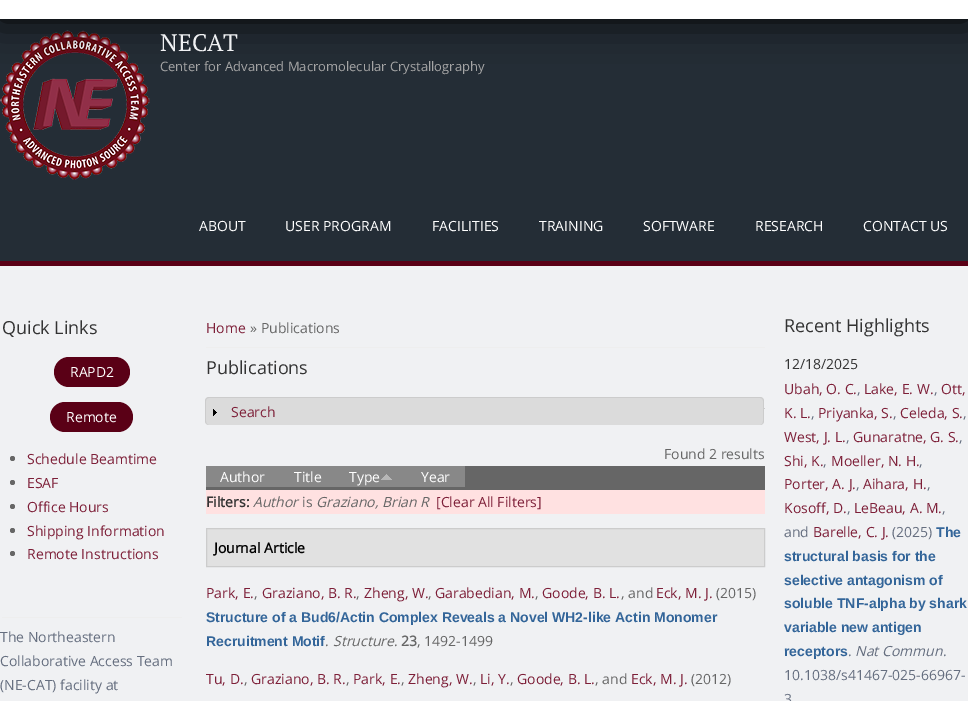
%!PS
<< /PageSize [968 701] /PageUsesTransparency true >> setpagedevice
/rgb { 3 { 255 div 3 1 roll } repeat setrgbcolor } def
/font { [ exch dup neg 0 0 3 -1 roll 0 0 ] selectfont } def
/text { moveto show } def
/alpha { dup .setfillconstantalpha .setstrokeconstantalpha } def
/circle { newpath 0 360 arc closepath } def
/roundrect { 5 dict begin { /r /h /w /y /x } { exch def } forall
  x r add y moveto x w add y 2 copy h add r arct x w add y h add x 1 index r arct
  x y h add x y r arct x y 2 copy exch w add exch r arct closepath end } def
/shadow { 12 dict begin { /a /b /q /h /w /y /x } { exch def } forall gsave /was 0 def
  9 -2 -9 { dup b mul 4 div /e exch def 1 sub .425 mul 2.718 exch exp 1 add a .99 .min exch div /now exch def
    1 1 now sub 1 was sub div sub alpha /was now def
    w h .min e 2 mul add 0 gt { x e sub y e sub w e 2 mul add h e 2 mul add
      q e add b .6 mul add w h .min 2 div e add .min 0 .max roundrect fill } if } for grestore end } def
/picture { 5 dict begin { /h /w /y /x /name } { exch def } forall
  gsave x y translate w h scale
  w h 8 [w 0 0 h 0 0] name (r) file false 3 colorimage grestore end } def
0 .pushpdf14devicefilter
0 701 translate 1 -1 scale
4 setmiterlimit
240 241 243 rgb
0 0 968 701 rectfill
36 45 54 rgb
0 19 968 242 rectfill
(img_01.rgb) 0 30 150 150 picture
0 0 0 rgb
0 0 968 19 0 20 1 shadow
255 255 255 rgb
0 0 968 19 rectfill
90 0 22 rgb
0 261 968 5 rectfill
54 357 76 30 15 roundrect fill
50 402 83 30 15 roundrect fill
102 102 102 rgb
12.5 458.5 2.5 circle fill
12.5 482.5 2.5 circle fill
12.5 506.5 2.5 circle fill
12.5 530.5 2.5 circle fill
12.5 553.5 2.5 circle fill
238 238 238 rgb
2 617 180 1 rectfill
206 347 559 1 rectfill
204 204 204 rgb
764 408 1 1 rectfill
219 219 219 rgb
205 397 559 28 4 roundrect fill
204 204 204 rgb
209 397 moveto 551 0 rlineto 2 0 4 2 4 4 rcurveto 0 20 rlineto 0 2 -2 4 -4 4 rcurveto -551 0 rlineto -2 0 -4 -2 -4 -4 rcurveto 0 -20 rlineto 0 -2 2 -4 4 -4 rcurveto closepath 209 398 moveto 551 0 rlineto 2 0 3 1 3 3 rcurveto 0 20 rlineto 0 2 -1 4 -3 4 rcurveto -551 0 rlineto -2 0 -3 -2 -3 -4 rcurveto 0 -20 rlineto 0 -2 1 -3 3 -3 rcurveto closepath eofill
(img_02.rgb) 213 409 4 7 picture
102 102 102 rgb
206 466 559 24 rectfill
136 136 136 rgb
206 466 259 21 rectfill
(img_03.rgb) 381 474 11 6 picture
255 225 225 rgb
206 490 559 24 rectfill
225 225 225 rgb
206.5 528.5 moveto 558 0 rlineto 0 38 rlineto -558 0 rlineto closepath gsave fill grestore
204 204 204 rgb
stroke
/PTSerif-Regular 24 font
240 241 243 rgb
(NECAT) 160 51 text
/OpenSans-Regular 13 font
165 165 165 rgb
(Center for Advanced Macromolecular Crystallography) 160 71 text
/OpenSans-Regular 14 font
255 255 255 rgb
(ABOUT) 199 231 text
(USER PROGRAM) 285 231 text
(FACILITIES) 432 231 text
(TRAINING) 539 231 text
(SOFTWARE) 643 231 text
(RESEARCH) 755 231 text
(CONTACT US) 863 231 text
/OpenSans-Regular 18 font
51 51 51 rgb
(Quick Links) 2 334 text
/OpenSans-Regular 14 font
255 255 255 rgb
(RAPD2) 70 377 text
(Remote) 66 422 text
125 31 56 rgb
(Schedule Beamtime) 27 464 text
(ESAF) 27 488 text
(Office Hours) 27 512 text
(Shipping Information) 27 536 text
(Remote Instructions) 27 559 text
101 110 127 rgb
(The Northeastern) 0 642 text
(Collaborative Access Team) 0 666 text
(\(NE-CAT\) facility at) 0 690 text
125 31 56 rgb
(Home) 206 333 text
102 102 102 rgb
(» Publications) 250 333 text
/OpenSans-Regular 18 font
51 51 51 rgb
(Publications) 206 374 text
/OpenSans-Regular 14 font
125 31 56 rgb
(Search) 231 417 text
102 102 102 rgb
(Found 2 results) 664 459 text
255 255 255 rgb
(Author) 220 482 text
(Title) 294 482 text
(Type) 349 482 text
(Year) 421 482 text
/OpenSans-Bold 14 font
51 51 51 rgb
(Filters:) 206 507 text
/OpenSans-Italic 14 font
102 102 102 rgb
(Author) 253 507 text
/OpenSans-Regular 14 font
(is) 302 507 text
/OpenSans-Italic 14 font
(Graziano, Brian R) 316 507 text
/OpenSans-Regular 14 font
125 31 56 rgb
([Clear All Filters]) 436 507 text
/OpenSans-Bold 14 font
0 0 0 rgb
(Journal Article) 214 553 text
/OpenSans-Regular 14 font
125 31 56 rgb
(Park, E.) 206 598 text
102 102 102 rgb
(,) 254 598 text
125 31 56 rgb
(Graziano, B. R.) 262 598 text
102 102 102 rgb
(,) 356 598 text
125 31 56 rgb
(Zheng, W.) 364 598 text
102 102 102 rgb
(,) 428 598 text
125 31 56 rgb
(Garabedian, M.) 435 598 text
102 102 102 rgb
(,) 535 598 text
125 31 56 rgb
(Goode, B. L.) 542 598 text
102 102 102 rgb
(, and) 621 598 text
125 31 56 rgb
(Eck, M. J.) 656 598 text
102 102 102 rgb
(\(2015\)) 716 598 text
/LiberationSans-Bold 14 font
51 101 153 rgb
(Structure of a Bud6/Actin Complex Reveals a Novel WH2-like Actin Monomer) 206 622 text
(Recruitment Motif) 206 646 text
/OpenSans-Regular 14 font
102 102 102 rgb
(.) 325 646 text
/OpenSans-Italic 14 font
(Structure) 333 646 text
/OpenSans-Regular 14 font
(.) 394 646 text
/OpenSans-Bold 14 font
(23) 401 646 text
/OpenSans-Regular 14 font
(, 1492-1499) 417 646 text
125 31 56 rgb
(Tu, D.) 206 684 text
102 102 102 rgb
(,) 244 684 text
125 31 56 rgb
(Graziano, B. R.) 251 684 text
102 102 102 rgb
(,) 346 684 text
125 31 56 rgb
(Park, E.) 353 684 text
102 102 102 rgb
(,) 401 684 text
125 31 56 rgb
(Zheng, W.) 408 684 text
102 102 102 rgb
(,) 473 684 text
125 31 56 rgb
(Li, Y.) 480 684 text
102 102 102 rgb
(,) 510 684 text
125 31 56 rgb
(Goode, B. L.) 517 684 text
102 102 102 rgb
(, and) 595 684 text
125 31 56 rgb
(Eck, M. J.) 631 684 text
102 102 102 rgb
(\(2012\)) 691 684 text
/OpenSans-Regular 18 font
51 51 51 rgb
(Recent Highlights) 784 332 text
/OpenSans-Regular 14 font
(12/18/2025) 784 369 text
125 31 56 rgb
(Ubah, O. C.) 784 394 text
101 110 127 rgb
(,) 857 394 text
125 31 56 rgb
(Lake, E. W.) 864 394 text
101 110 127 rgb
(,) 934 394 text
125 31 56 rgb
(Ott,) 941 394 text
(K. L.) 784 418 text
101 110 127 rgb
(,) 811 418 text
125 31 56 rgb
(Priyanka, S.) 818 418 text
101 110 127 rgb
(,) 893 418 text
125 31 56 rgb
(Celeda, S.) 900 418 text
101 110 127 rgb
(,) 963 418 text
125 31 56 rgb
(West, J. L.) 784 442 text
101 110 127 rgb
(,) 846 442 text
125 31 56 rgb
(Gunaratne, G. S.) 853 442 text
101 110 127 rgb
(,) 959 442 text
125 31 56 rgb
(Shi, K.) 784 466 text
101 110 127 rgb
(,) 823 466 text
125 31 56 rgb
(Moeller, N. H.) 831 466 text
101 110 127 rgb
(,) 919 466 text
125 31 56 rgb
(Porter, A. J.) 784 489 text
101 110 127 rgb
(,) 856 489 text
125 31 56 rgb
(Aihara, H.) 863 489 text
101 110 127 rgb
(,) 927 489 text
125 31 56 rgb
(Kosoff, D.) 784 513 text
101 110 127 rgb
(,) 847 513 text
125 31 56 rgb
(LeBeau, A. M.) 854 513 text
101 110 127 rgb
(,) 942 513 text
(and) 784 537 text
125 31 56 rgb
(Barelle, C. J.) 813 537 text
101 110 127 rgb
(\(2025\)) 892 537 text
/LiberationSans-Bold 14 font
51 101 153 rgb
(The) 936 537 text
(structural basis for the) 784 561 text
(selective antagonism of) 784 585 text
(soluble TNF-alpha by shark) 784 608 text
(variable new antigen) 784 632 text
(receptors) 784 656 text
/OpenSans-Regular 14 font
101 110 127 rgb
(.) 848 656 text
/OpenSans-Italic 14 font
(Nat Commun) 855 656 text
/OpenSans-Regular 14 font
(.) 943 656 text
(10.1038/s41467-025-66967-) 784 680 text
(3) 784 704 text
.poppdf14devicefilter showpage
